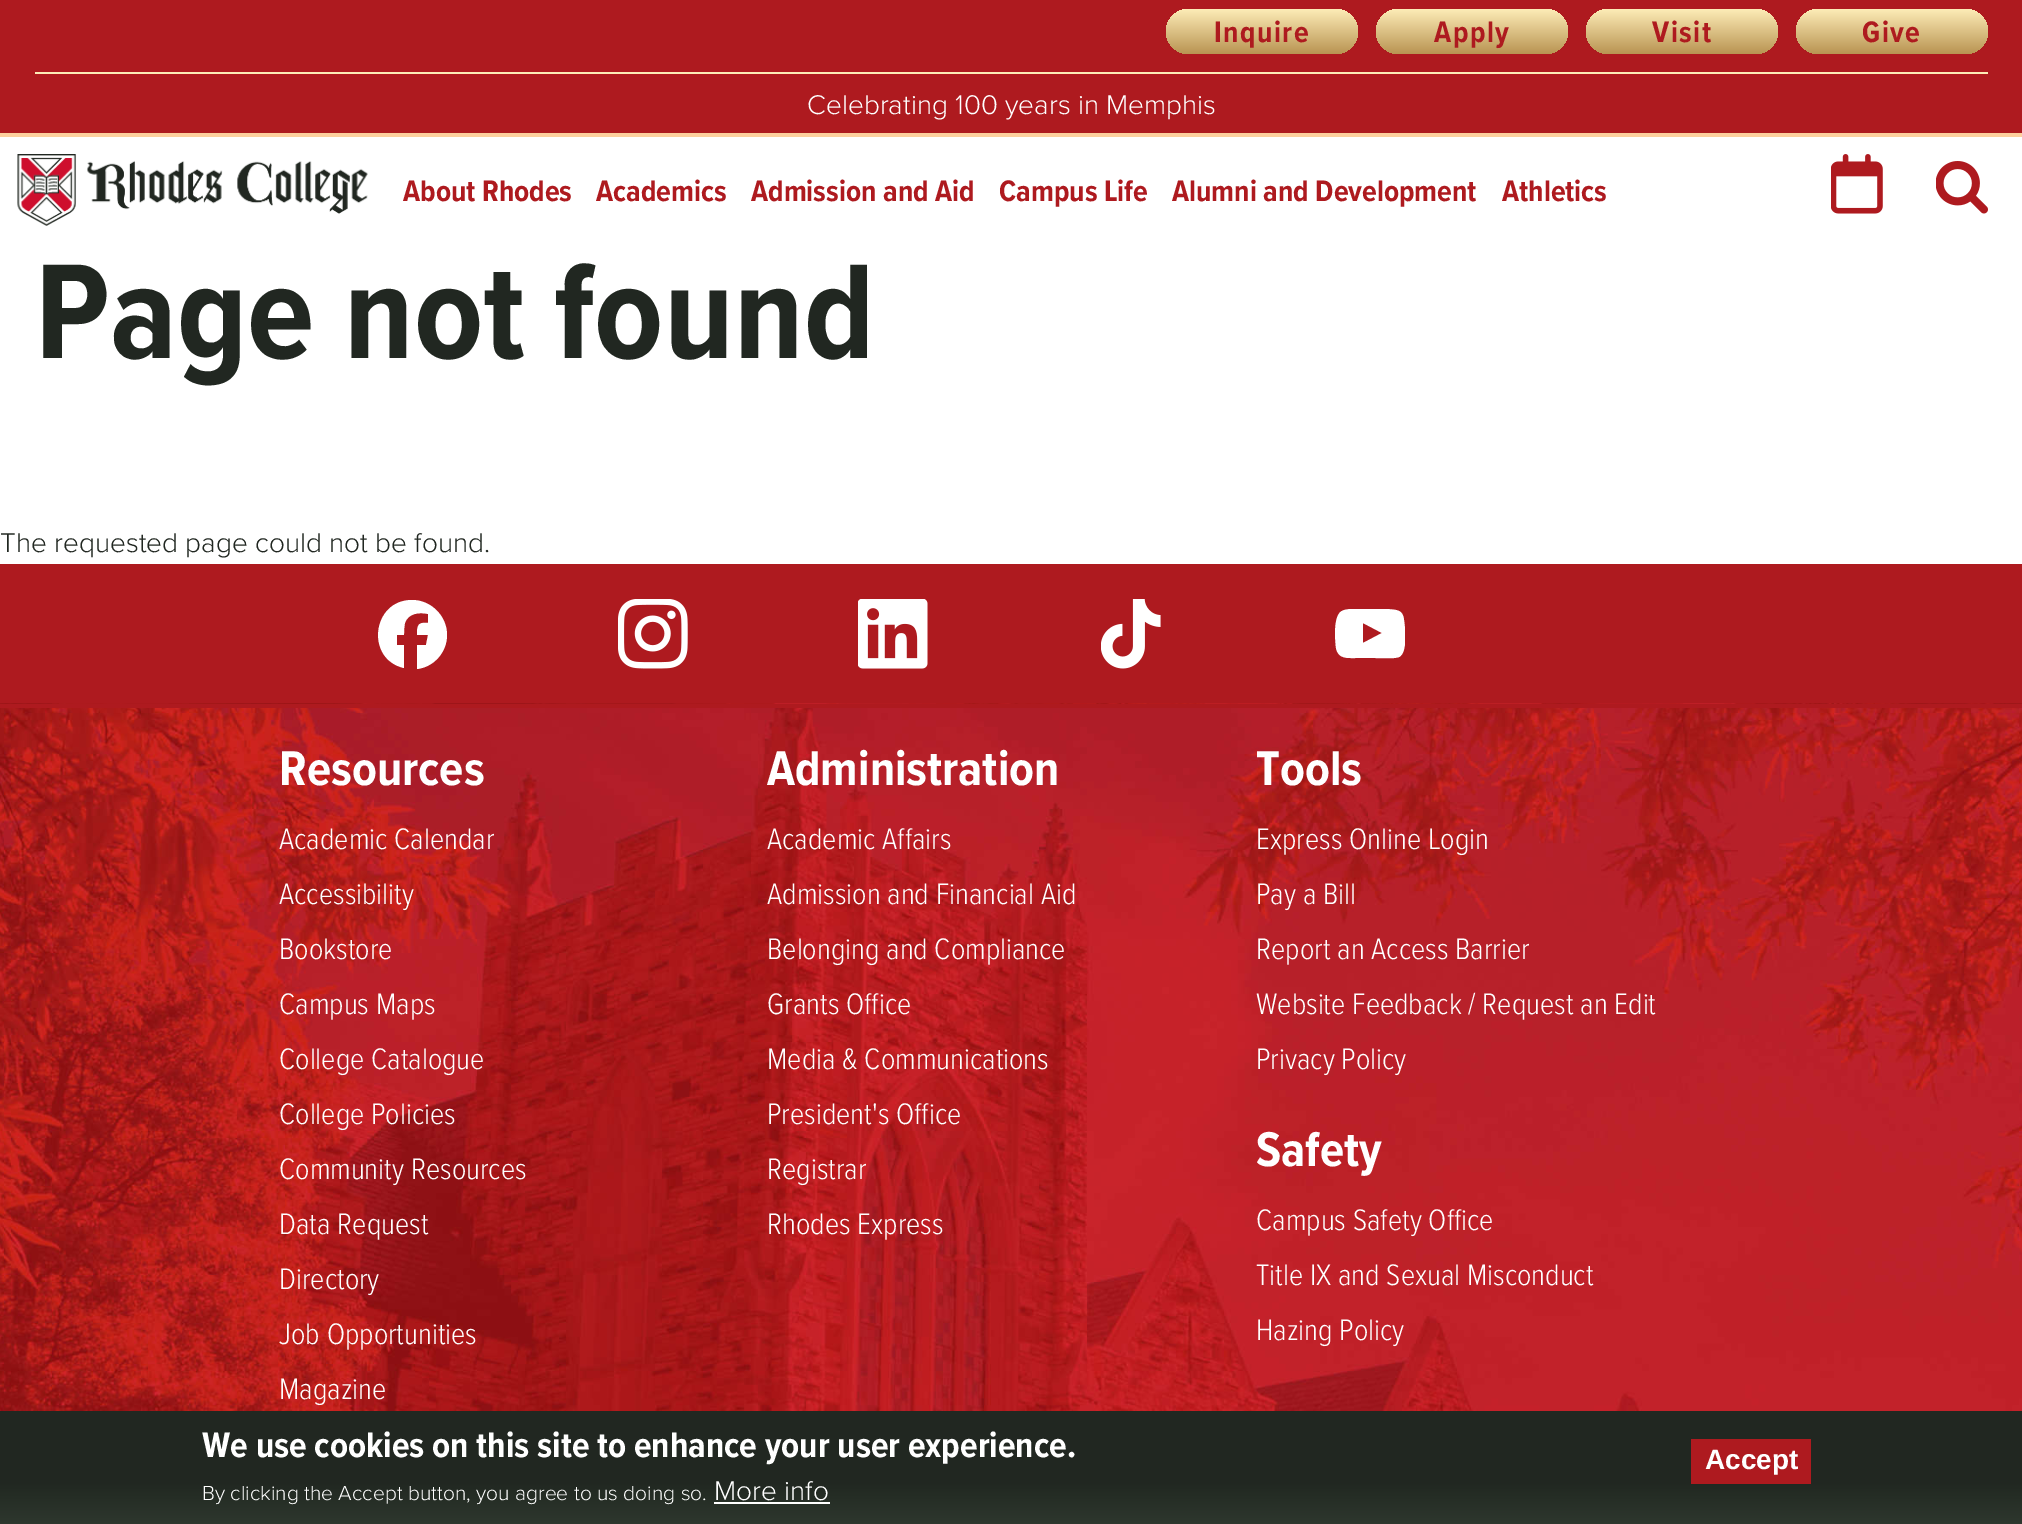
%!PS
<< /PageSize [2022 1524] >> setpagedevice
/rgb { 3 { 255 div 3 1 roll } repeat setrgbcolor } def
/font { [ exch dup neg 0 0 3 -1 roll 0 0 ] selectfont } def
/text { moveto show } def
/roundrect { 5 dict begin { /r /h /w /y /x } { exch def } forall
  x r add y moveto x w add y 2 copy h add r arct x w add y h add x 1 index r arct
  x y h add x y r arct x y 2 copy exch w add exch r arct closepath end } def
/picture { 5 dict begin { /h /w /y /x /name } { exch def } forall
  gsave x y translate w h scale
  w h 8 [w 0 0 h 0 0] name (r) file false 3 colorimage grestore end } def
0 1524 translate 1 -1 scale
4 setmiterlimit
255 255 255 rgb
0 0 2022 1524 rectfill
174 26 31 rgb
0 0 2022 133 rectfill
253 208 158 rgb
0 133 2022 4 rectfill
gsave 1166 9 192 45 22.5 roundrect clip newpath
<< /ShadingType 2 /ColorSpace /DeviceRGB /Coords [1262 9 1262 54] /Extend [true true] /Function << /FunctionType 2 /Domain [0 1] /C0 [0.992 0.925 0.718] /C1 [0.725 0.58 0.322] /N 1 >> >> shfill grestore
gsave 1376 9 192 45 22.5 roundrect clip newpath
<< /ShadingType 2 /ColorSpace /DeviceRGB /Coords [1472 9 1472 54] /Extend [true true] /Function << /FunctionType 2 /Domain [0 1] /C0 [0.992 0.925 0.718] /C1 [0.725 0.58 0.322] /N 1 >> >> shfill grestore
gsave 1586 9 192 45 22.5 roundrect clip newpath
<< /ShadingType 2 /ColorSpace /DeviceRGB /Coords [1682 9 1682 54] /Extend [true true] /Function << /FunctionType 2 /Domain [0 1] /C0 [0.992 0.925 0.718] /C1 [0.725 0.58 0.322] /N 1 >> >> shfill grestore
gsave 1796 9 192 45 22.5 roundrect clip newpath
<< /ShadingType 2 /ColorSpace /DeviceRGB /Coords [1892 9 1892 54] /Extend [true true] /Function << /FunctionType 2 /Domain [0 1] /C0 [0.992 0.925 0.718] /C1 [0.725 0.58 0.322] /N 1 >> >> shfill grestore
253 236 183 rgb
35 72 1953 2 rectfill
(img_01.rgb) 17 154 351 72 picture
(img_02.rgb) 1831 154 52 60 picture
(img_03.rgb) 1936 161 52 53 picture
174 26 31 rgb
0 564 2022 140 rectfill
255 255 255 rgb
412 600 moveto -40 0 -47 59 -8 68 rcurveto 0 -23 rlineto -7 0 rlineto 0 -10 rlineto 7 0 rlineto 0 -4 0 -8 1 -12 rcurveto 3 -10 15 -11 23 -9 rcurveto 0 9 rlineto -10 -1 -11 2 -11 12 rcurveto 11 0 rlineto -2 10 rlineto -9 0 rlineto 0 24 rlineto 17 -2 30 -17 30 -34 rcurveto 0 -19 -16 -35 -35 -35 rcurveto closepath fill
(img_04.rgb) 618 599 70 70 picture
(img_05.rgb) 858 599 70 70 picture
(img_06.rgb) 1101 599 60 70 picture
gsave
1335 609 70 51 rectclip
1404 620 moveto -1 -11 -8 -10 -17 -11 rcurveto -22 0 rlineto -6 0 -18 -1 -23 2 rcurveto -9 4 -7 29 -6 37 rcurveto 2 11 11 10 20 10 rcurveto 19 0 rlineto 6 0 19 1 24 -1 rcurveto 9 -4 6 -30 5 -37 rcurveto closepath 1363 643 moveto 0 -20 rlineto 19 10 rlineto closepath fill
grestore
(img_07.rgb) 0 703 2022 708 picture
174 26 31 rgb
0 704 2022 4 rectfill
gsave 0 1411 moveto 2022 0 rlineto 0 113 rlineto -2022 0 rlineto closepath clip newpath
<< /ShadingType 2 /ColorSpace /DeviceRGB /Coords [1012 1410 1012 1524] /Extend [true true] /Function << /FunctionType 3 /Domain [0 1] /Functions [<< /FunctionType 2 /Domain [0 1] /C0 [0.129 0.153 0.129] /C1 [0.129 0.153 0.129] /N 1 >> << /FunctionType 2 /Domain [0 1] /C0 [0.129 0.153 0.129] /C1 [0.18 0.216 0.18] /N 1 >>] /Bounds [0.62] /Encode [0 1 0 1] >> >> shfill grestore
255 255 255 rgb
714 1502 116 2 rectfill
174 26 31 rgb
1691 1439 120 45 rectfill
/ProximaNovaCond-Bold 30.75 font
1214 42 moveto 1.5 0 (Inquire) ashow
1434 42 moveto 1.5 0 (Apply) ashow
1652 42 moveto 1.5 0 (Visit) ashow
1862 42 moveto 1.5 0 (Give) ashow
/ProximaNova-Light 28 font
255 255 255 rgb
(Celebrating 100 years in Memphis) 807 114 text
/ProximaNovaCond-Bold 30.75 font
174 26 31 rgb
(About Rhodes) 403 201 text
(Academics) 596 201 text
(Admission and Aid) 751 201 text
(Campus Life) 999 201 text
(Alumni and Development) 1172 201 text
(Athletics) 1502 201 text
/ProximaNovaCond-Bold 140 font
33 39 33 rgb
(Page not found) 35 358 text
/ProximaNova-Light 28 font
(The requested page could not be found.) 0 552 text
/ProximaNovaCond-Bold 50.5 font
255 255 255 rgb
(Resources) 279 785 text
/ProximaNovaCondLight-Light 30.75 font
(Academic Calendar) 279 849 text
(Accessibility) 279 904 text
(Bookstore) 279 959 text
(Campus Maps) 279 1014 text
(College Catalogue) 279 1069 text
(College Policies) 279 1124 text
(Community Resources) 279 1179 text
(Data Request) 279 1234 text
(Directory) 279 1289 text
(Job Opportunities) 279 1344 text
(Magazine) 279 1399 text
/ProximaNovaCond-Bold 50.5 font
(Administration) 767 785 text
/ProximaNovaCondLight-Light 30.75 font
(Academic Affairs) 767 849 text
(Admission and Financial Aid) 767 904 text
(Belonging and Compliance) 767 959 text
(Grants Office) 767 1014 text
(Media & Communications) 767 1069 text
(President's Office) 767 1124 text
(Registrar) 767 1179 text
(Rhodes Express) 767 1234 text
/ProximaNovaCond-Bold 50.5 font
(Tools) 1256 785 text
/ProximaNovaCondLight-Light 30.75 font
(Express Online Login) 1256 849 text
(Pay a Bill) 1256 904 text
(Report an Access Barrier) 1256 959 text
(Website Feedback / Request an Edit) 1256 1014 text
(Privacy Policy) 1256 1069 text
/ProximaNovaCond-Bold 50.5 font
(Safety) 1256 1166 text
/ProximaNovaCondLight-Light 30.75 font
(Campus Safety Office) 1256 1230 text
(Title IX and Sexual Misconduct) 1256 1285 text
(Hazing Policy) 1256 1340 text
/ProximaNovaCond-Bold 36.75 font
(We use cookies on this site to enhance your user experience.) 202 1457 text
/ProximaNova-Light 21 font
(By clicking the Accept button, you agree to us doing so.) 202 1500 text
/ProximaNova-Light 28 font
(More info) 714 1500 text
/LiberationSans-Bold 28 font
(Accept) 1705 1469 text
showpage
